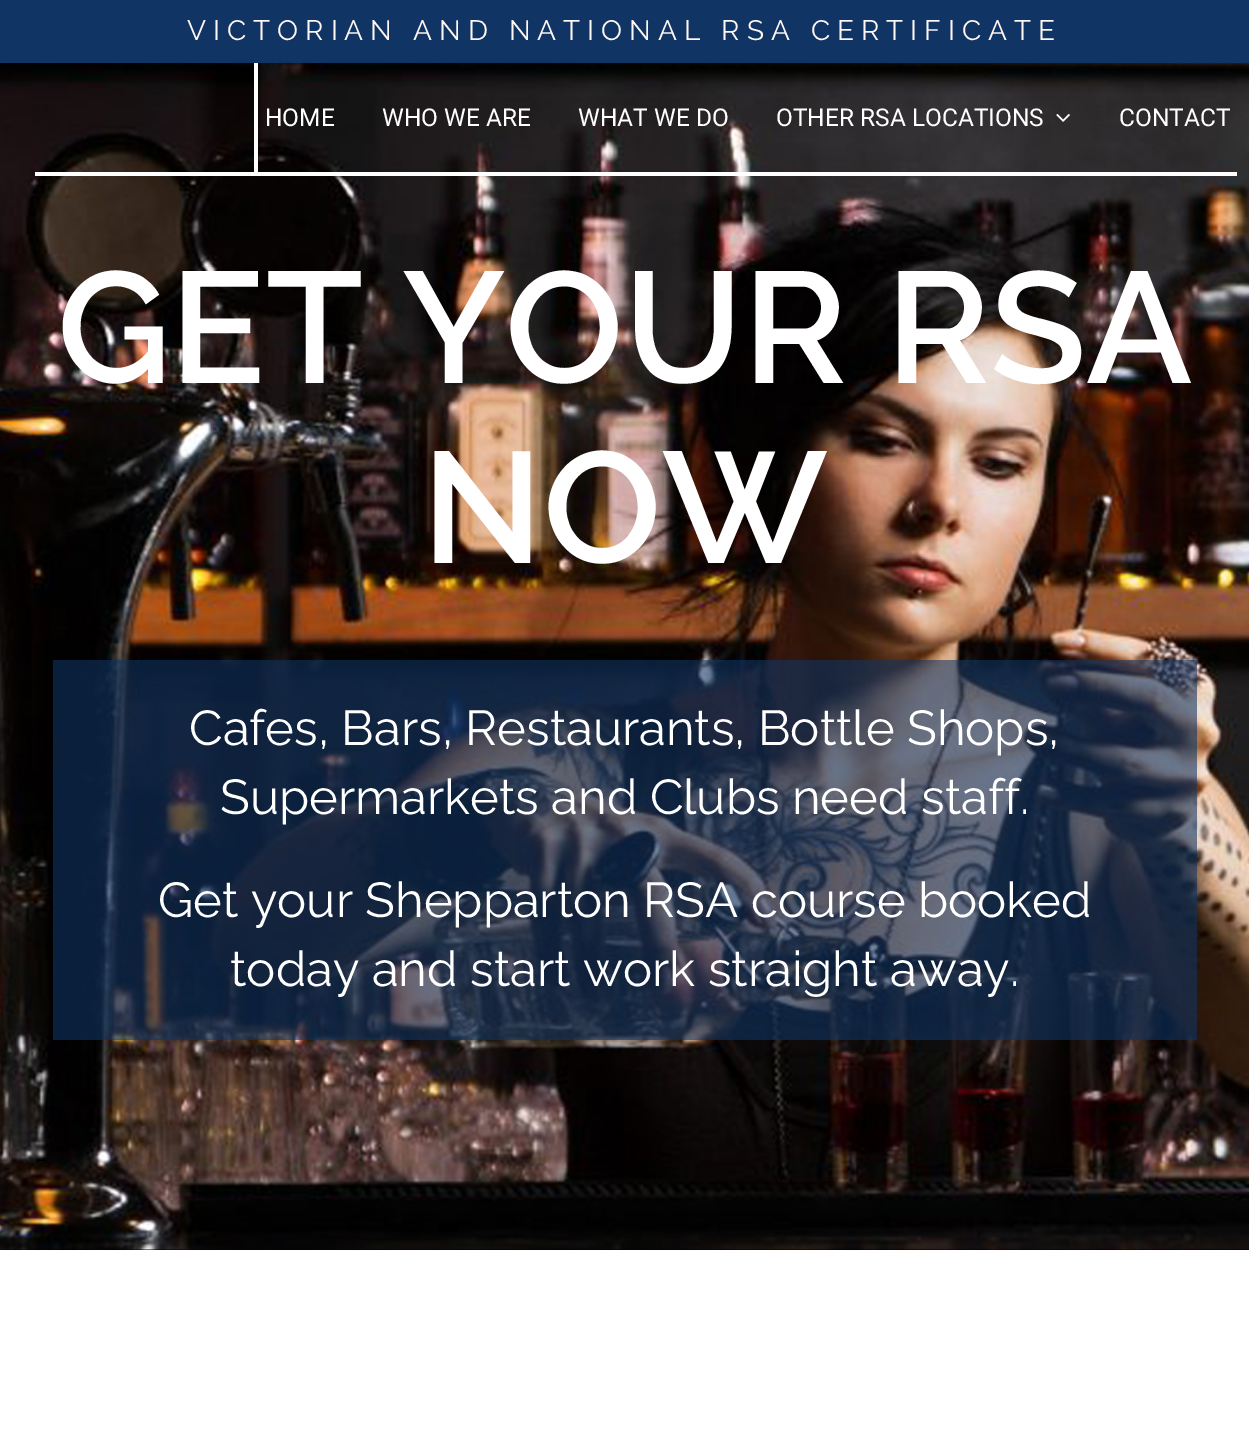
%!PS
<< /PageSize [1249 1445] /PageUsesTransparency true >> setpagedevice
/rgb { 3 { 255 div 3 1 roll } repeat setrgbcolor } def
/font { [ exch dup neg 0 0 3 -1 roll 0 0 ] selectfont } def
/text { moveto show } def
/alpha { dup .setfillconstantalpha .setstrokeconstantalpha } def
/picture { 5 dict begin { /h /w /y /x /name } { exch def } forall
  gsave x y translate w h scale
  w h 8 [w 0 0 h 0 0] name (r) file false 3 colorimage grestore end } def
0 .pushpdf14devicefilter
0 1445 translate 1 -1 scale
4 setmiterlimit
0 0 0 rgb
0 0 1249 1445 rectfill
16 52 99 rgb
0 0 1249 63 rectfill
(img_02.rgb) 0 63 1249 1187 picture
255 255 255 rgb
254 63 4 112 rectfill
35 172 1202 4 rectfill
(img_01.rgb) 1056 114 14 8 picture
0.59 alpha
16 52 99 rgb
53 660 1144 380 rectfill
1 alpha
255 255 255 rgb
0 1250 1249 195 rectfill
/Raleway-Regular 28 font
255 247 246 rgb
187 40 moveto 7 0 (VICTORIAN AND NATIONAL RSA CERTIFICATE) ashow
/Roboto-Regular 24.5 font
255 255 255 rgb
(HOME) 265 126 text
(WHO WE ARE) 382 126 text
(WHAT WE DO) 578 126 text
(OTHER RSA LOCATIONS) 776 126 text
(CONTACT) 1119 126 text
/Raleway-SemiBold 157.75 font
(GET YOUR RSA) 57 383 text
(NOW) 422 563 text
/Raleway-Regular 49 font
(Cafes, Bars, Restaurants, Bottle Shops,) 189 745 text
(Supermarkets and Clubs need staff.) 220 814 text
(Get your Shepparton RSA course booked) 158 917 text
(today and start work straight away.) 230 986 text
.poppdf14devicefilter showpage
